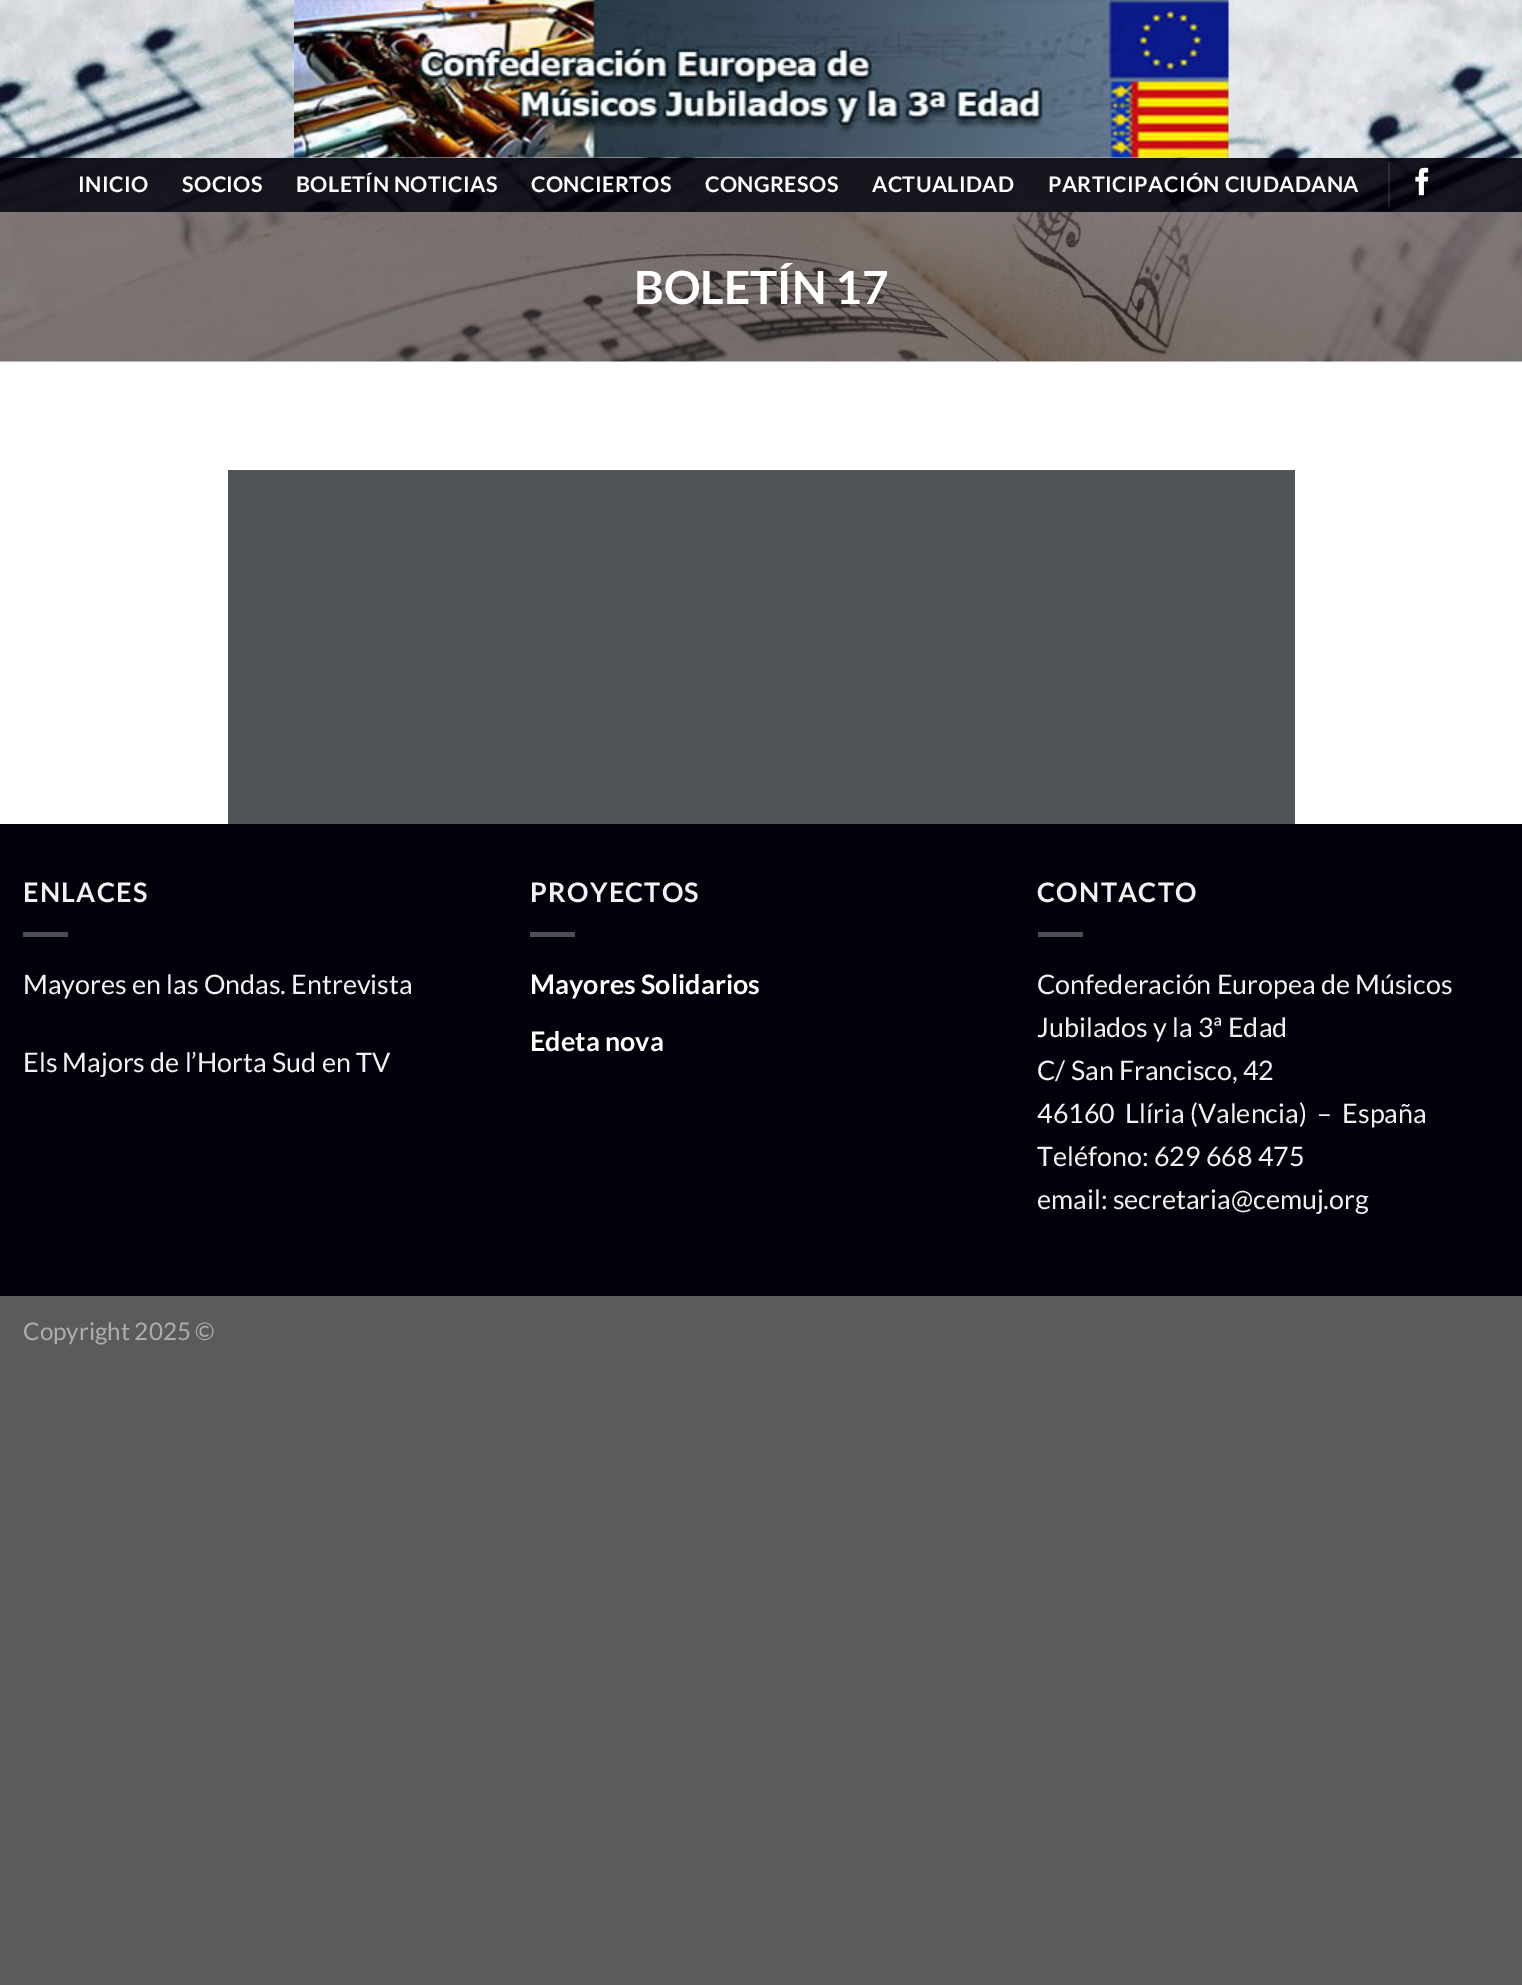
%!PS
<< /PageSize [1522 1985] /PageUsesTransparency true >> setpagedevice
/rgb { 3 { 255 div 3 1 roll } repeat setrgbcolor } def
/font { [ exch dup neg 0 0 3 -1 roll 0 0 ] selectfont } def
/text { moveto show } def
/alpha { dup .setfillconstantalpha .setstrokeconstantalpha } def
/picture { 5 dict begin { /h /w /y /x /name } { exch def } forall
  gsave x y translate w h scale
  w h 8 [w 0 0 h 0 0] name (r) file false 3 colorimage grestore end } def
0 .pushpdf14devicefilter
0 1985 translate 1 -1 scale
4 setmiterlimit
91 91 91 rgb
0 0 1522 1985 rectfill
255 255 255 rgb
0 211 1522 613 rectfill
(img_04.rgb) 0 211 1522 151 picture
(img_01.rgb) 0 0 1522 212 picture
(img_02.rgb) 294 0 935 158 picture
0.9 alpha
2 0 10 rgb
0 158 1522 54 rectfill
0.1 alpha
0 0 0 rgb
23 158 1460 2 rectfill
255 255 255 rgb
1388 162 2 45 rectfill
1 alpha
(img_03.rgb) 1415 167 14 29 picture
81 85 88 rgb
228 470 1067 354 rectfill
2 0 10 rgb
0 824 1522 472 rectfill
78 77 84 rgb
23 932 45 5 rectfill
530 932 45 5 rectfill
1038 932 45 5 rectfill
/Lato-Bold 21.5 font
255 255 255 rgb
78 192 moveto 0.4 0 (INICIO) ashow
182 192 moveto 0.4 0 (SOCIOS) ashow
296 192 moveto 0.4 0 (BOLETÍN NOTICIAS) ashow
531 192 moveto 0.4 0 (CONCIERTOS) ashow
705 192 moveto 0.4 0 (CONGRESOS) ashow
872 192 moveto 0.4 0 (ACTUALIDAD) ashow
1048 192 moveto 0.4 0 (PARTICIPACIÓN CIUDADANA) ashow
/Lato-Bold 45.75 font
(BOLETÍN 17) 634 304 text
/Lato-Bold 26.9 font
241 241 241 rgb
23 902 moveto 1.25 0 (ENLACES) ashow
/Lato-Regular 26.9 font
(Mayores en las Ondas. Entrevista) 23 994 text
(Els Majors de l’Horta Sud en TV) 23 1072 text
/Lato-Bold 26.9 font
530 902 moveto 1.25 0 (PROYECTOS) ashow
255 255 255 rgb
(Mayores Solidarios) 530 994 text
(Edeta nova) 530 1051 text
241 241 241 rgb
1037 902 moveto 1.25 0 (CONTACTO) ashow
/Lato-Regular 26.9 font
(Confederación Europea de Músicos) 1037 994 text
(Jubilados y la 3ª Edad) 1037 1037 text
(C/ San Francisco, 42) 1037 1080 text
(46160  Llíria \(Valencia\)  –  España) 1037 1123 text
(Teléfono: 629 668 475) 1037 1166 text
(email: secretaria@cemuj.org) 1037 1209 text
/Lato-Regular 24.25 font
173 173 173 rgb
(Copyright 2025 ©) 23 1340 text
.poppdf14devicefilter showpage
